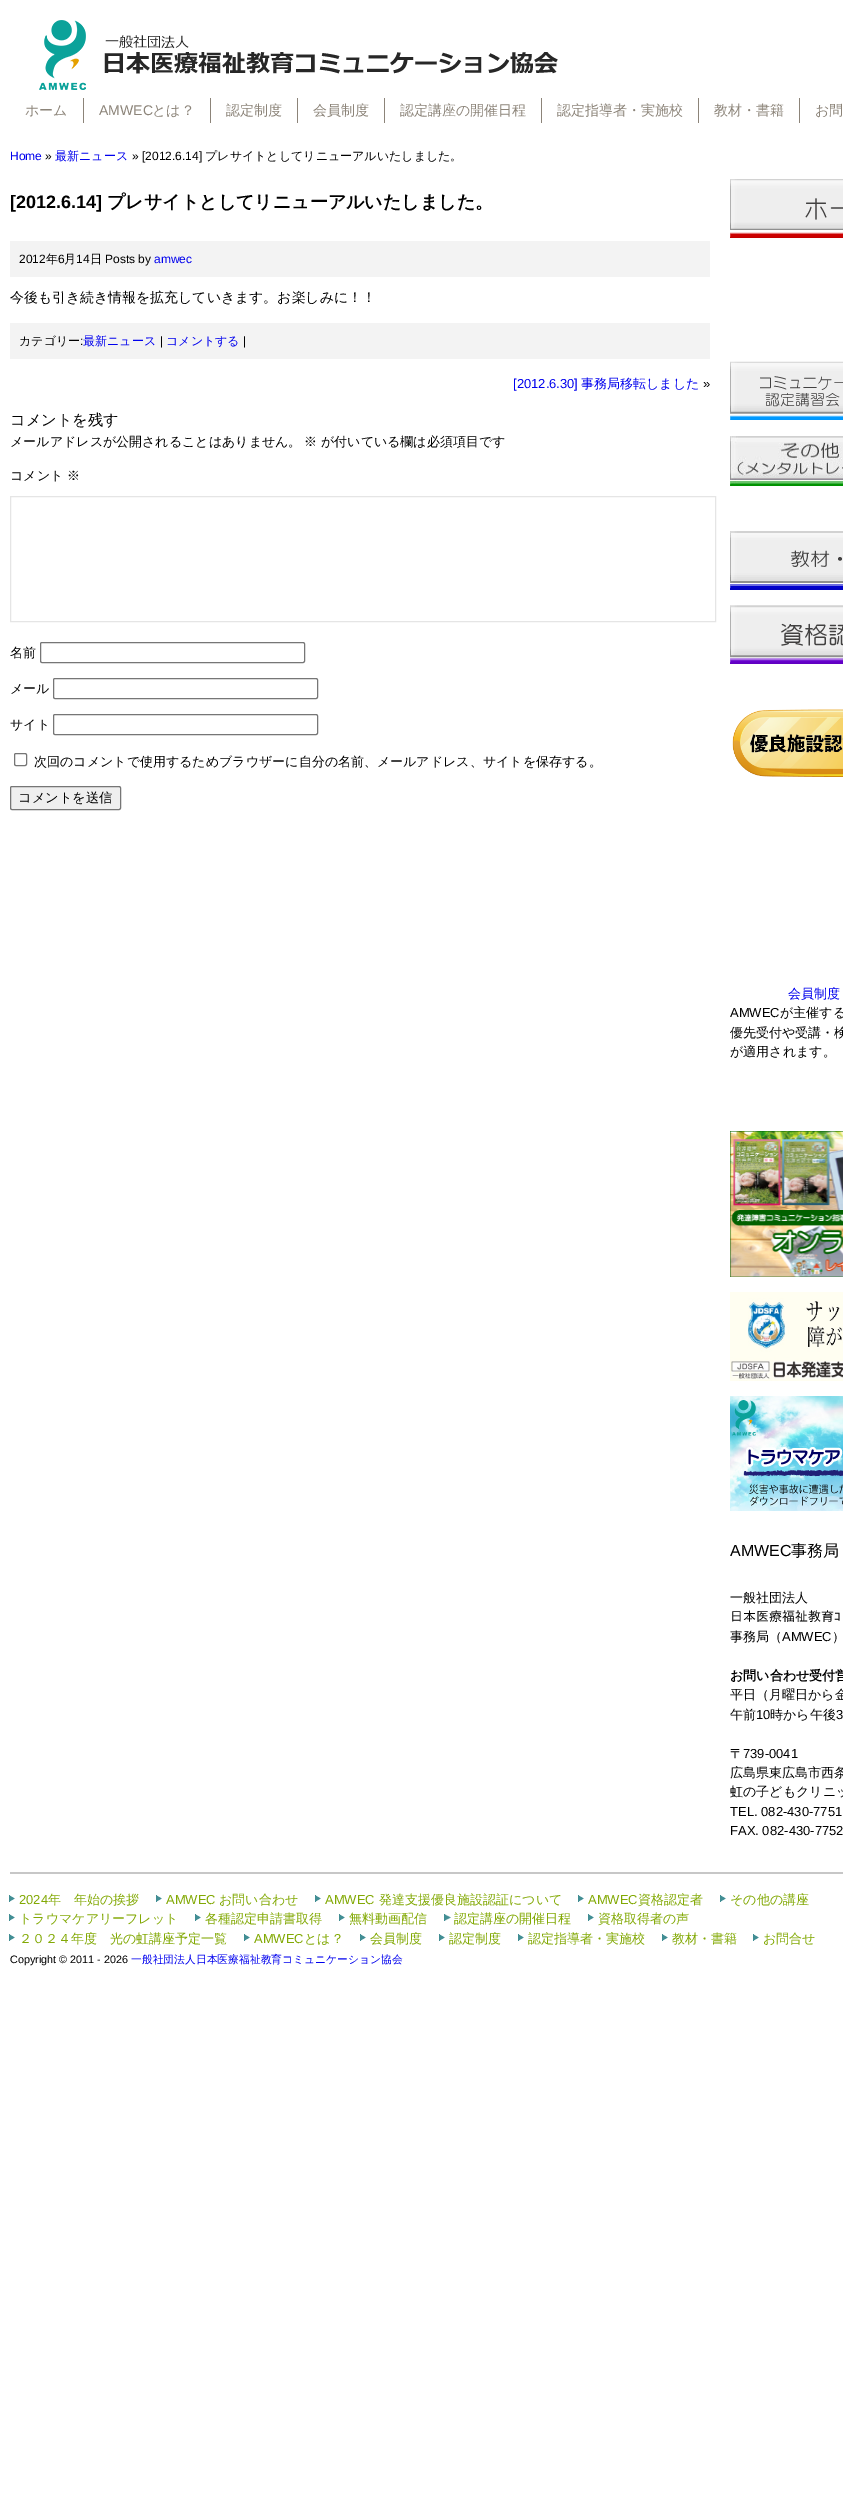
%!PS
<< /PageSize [843 2496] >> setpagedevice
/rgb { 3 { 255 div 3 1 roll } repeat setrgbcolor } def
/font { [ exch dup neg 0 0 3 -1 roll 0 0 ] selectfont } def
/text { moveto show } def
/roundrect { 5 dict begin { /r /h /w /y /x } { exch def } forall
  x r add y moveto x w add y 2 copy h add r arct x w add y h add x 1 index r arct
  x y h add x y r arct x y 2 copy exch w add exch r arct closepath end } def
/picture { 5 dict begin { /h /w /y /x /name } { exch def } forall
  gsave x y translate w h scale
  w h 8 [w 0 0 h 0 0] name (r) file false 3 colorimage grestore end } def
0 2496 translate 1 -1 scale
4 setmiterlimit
255 255 255 rgb
0 0 843 2496 rectfill
(img_01.rgb) 39 20 519 70 picture
140 132 121 rgb
83 98 1 25 rectfill
210 98 1 25 rectfill
297 98 1 25 rectfill
384 98 1 25 rectfill
541 98 1 25 rectfill
698 98 1 25 rectfill
799 98 1 25 rectfill
243 243 243 rgb
10 241 700 36 rectfill
10 323 700 36 rectfill
229 229 229 rgb
10.5 496.5 705 125 rectstroke
118 118 118 rgb
40.5 642.5 264 20 1.5 roundrect stroke
53.5 678.5 264 20 1.5 roundrect stroke
53.5 714.5 264 20 1.5 roundrect stroke
14.5 753.5 12 12 1.5 roundrect stroke
239 239 239 rgb
10.5 786.5 110 23 1.5 roundrect gsave fill grestore
118 118 118 rgb
stroke
(img_02.rgb) 730 179 113 59 picture
(img_03.rgb) 730 361 113 59 picture
(img_04.rgb) 730 436 113 50 picture
(img_05.rgb) 730 531 113 59 picture
(img_06.rgb) 730 605 113 59 picture
(img_07.rgb) 732 709 111 68 picture
(img_08.rgb) 730 1131 113 146 picture
(img_09.rgb) 730 1292 113 89 picture
(img_10.rgb) 730 1396 113 115 picture
199 199 199 rgb
10 1872 833 2 rectfill
(img_11.rgb) 9 1895 6 7 picture
(img_11.rgb) 156 1895 6 7 picture
(img_11.rgb) 315 1895 6 7 picture
(img_11.rgb) 578 1895 6 7 picture
(img_11.rgb) 720 1895 6 7 picture
(img_11.rgb) 9 1914 6 7 picture
(img_11.rgb) 195 1914 6 7 picture
(img_11.rgb) 339 1914 6 7 picture
(img_12.rgb) 444 1914 7 7 picture
(img_11.rgb) 588 1914 6 7 picture
(img_11.rgb) 9 1934 6 7 picture
(img_11.rgb) 244 1934 6 7 picture
(img_11.rgb) 360 1934 6 7 picture
(img_11.rgb) 439 1934 6 7 picture
(img_11.rgb) 518 1934 6 7 picture
(img_11.rgb) 662 1934 6 7 picture
(img_11.rgb) 753 1934 6 7 picture
/WenQuanYiZenHei-Medium 14 font
140 132 121 rgb
(ホーム) 25 115 text
/LiberationSans-Regular 14 font
(AMWEC) 99 115 text
/WenQuanYiZenHei-Medium 14 font
(とは？) 152 115 text
(認定制度) 226 115 text
(会員制度) 313 115 text
(認定講座の開催日程) 400 115 text
(認定指導者・実施校) 557 115 text
(教材・書籍) 714 115 text
(お問) 815 115 text
/LiberationSans-Regular 12 font
0 0 238 rgb
(Home) 10 160 text
0 0 0 rgb
(») 45 160 text
/WenQuanYiZenHei-Medium 12 font
0 0 238 rgb
(最新ニュース) 55 160 text
/LiberationSans-Regular 12 font
0 0 0 rgb
(» [2012.6.14]) 132 160 text
/WenQuanYiZenHei-Medium 12 font
(プレサイトとしてリニューアルいたしました。) 205 160 text
/LiberationSans-Bold 18 font
([2012.6.14]) 10 208 text
/WenQuanYiZenHei-Bold 18 font
(プレサイトとしてリニューアルいたしました。) 107 208 text
/LiberationSans-Regular 12 font
(2012) 19 263 text
/WenQuanYiZenHei-Medium 12 font
(年) 46 263 text
/LiberationSans-Regular 12 font
(6) 58 263 text
/WenQuanYiZenHei-Medium 12 font
(月) 64 263 text
/LiberationSans-Regular 12 font
(14) 76 263 text
/WenQuanYiZenHei-Medium 12 font
(日) 90 263 text
/LiberationSans-Regular 12 font
(Posts by) 105 263 text
0 0 238 rgb
(amwec) 154 263 text
/WenQuanYiZenHei-Medium 13.9 font
0 0 0 rgb
(今後も引き続き情報を拡充していきます。お楽しみに！！) 10 302 text
/WenQuanYiZenHei-Medium 12 font
(カテゴリー) 19 345 text
/LiberationSans-Regular 12 font
(:) 80 345 text
/WenQuanYiZenHei-Medium 12 font
0 0 238 rgb
(最新ニュース) 83 345 text
/LiberationSans-Regular 12 font
0 0 0 rgb
(|) 160 345 text
/WenQuanYiZenHei-Medium 12 font
0 0 238 rgb
(コメントする) 166 345 text
/LiberationSans-Regular 12 font
0 0 0 rgb
(|) 243 345 text
/LiberationSans-Regular 13 font
0 0 238 rgb
([2012.6.30]) 513 388 text
/WenQuanYiZenHei-Medium 13 font
(事務局移転しました) 581 388 text
/LiberationSans-Regular 13 font
0 0 0 rgb
(») 703 388 text
/WenQuanYiZenHei-Medium 15.25 font
(コメントを残す) 10 425 text
/WenQuanYiZenHei-Medium 13 font
(メールアドレスが公開されることはありません。) 10 446 text
(※ が付いている欄は必須項目です) 304 446 text
(コメント) 10 480 text
(※) 67 480 text
(名前) 10 657 text
(メール) 10 693 text
(サイト) 10 729 text
(次回のコメントで使用するためブラウザーに自分の名前、メールアドレス、サイトを保存する。) 34 766 text
/WenQuanYiZenHei-Medium 13.25 font
(コメントを送信) 18 802 text
/WenQuanYiZenHei-Medium 13 font
0 0 238 rgb
(会員制度) 788 998 text
/LiberationSans-Regular 13 font
0 0 0 rgb
(AMWEC) 730 1017 text
/WenQuanYiZenHei-Medium 13 font
(が主催する) 780 1017 text
(優先受付や受講・検) 730 1037 text
(が適用されます。) 730 1056 text
/LiberationSans-Regular 16 font
(AMWEC) 730 1556 text
/WenQuanYiZenHei-Medium 16 font
(事務局) 791 1556 text
/WenQuanYiZenHei-Medium 13 font
(一般社団法人) 730 1602 text
/IPAPGothic-Regular 13 font
(日本医療福祉教育ｺ) 730 1621 text
/WenQuanYiZenHei-Medium 13 font
(事務局（) 730 1641 text
/LiberationSans-Regular 13 font
(AMWEC) 782 1641 text
/WenQuanYiZenHei-Medium 13 font
(）) 832 1641 text
/WenQuanYiZenHei-Bold 13 font
(お問い合わせ受付営) 730 1680 text
/WenQuanYiZenHei-Medium 13 font
(平日（月曜日から金) 730 1699 text
(午前) 730 1719 text
/LiberationSans-Regular 13 font
(10) 756 1719 text
/WenQuanYiZenHei-Medium 13 font
(時から午後) 770 1719 text
/LiberationSans-Regular 13 font
(3) 836 1719 text
/WenQuanYiZenHei-Medium 13 font
(〒) 730 1758 text
/LiberationSans-Regular 13 font
(739-0041) 743 1758 text
/WenQuanYiZenHei-Medium 13 font
(広島県東広島市西条) 730 1777 text
(虹の子どもクリニッ) 730 1796 text
/LiberationSans-Regular 13 font
(TEL. 082-430-7751) 730 1816 text
(FAX. 082-430-7752) 730 1835 text
130 169 4 rgb
(2024) 19 1904 text
/WenQuanYiZenHei-Medium 13 font
(年　年始の挨拶) 48 1904 text
/LiberationSans-Regular 13 font
(AMWEC) 166 1904 text
/WenQuanYiZenHei-Medium 13 font
(お問い合わせ) 219 1904 text
/LiberationSans-Regular 13 font
(AMWEC) 325 1904 text
/WenQuanYiZenHei-Medium 13 font
(発達支援優良施設認証について) 379 1904 text
/LiberationSans-Regular 13 font
(AMWEC) 588 1904 text
/WenQuanYiZenHei-Medium 13 font
(資格認定者) 638 1904 text
(その他の講座) 730 1904 text
(トラウマケアリーフレット) 19 1923 text
(各種認定申請書取得) 205 1923 text
(無料動画配信) 349 1923 text
(認定講座の開催日程) 454 1923 text
(資格取得者の声) 598 1923 text
(２０２４年度　光の虹講座予定一覧) 19 1943 text
/LiberationSans-Regular 13 font
(AMWEC) 254 1943 text
/WenQuanYiZenHei-Medium 13 font
(とは？) 304 1943 text
(会員制度) 370 1943 text
(認定制度) 449 1943 text
(認定指導者・実施校) 528 1943 text
(教材・書籍) 672 1943 text
(お問合せ) 763 1943 text
/LiberationSans-Regular 10.8 font
0 0 0 rgb
(Copyright © 2011 - 2026) 10 1963 text
/WenQuanYiZenHei-Medium 10.8 font
0 0 238 rgb
(一般社団法人日本医療福祉教育コミュニケーション協会) 131 1963 text
showpage
